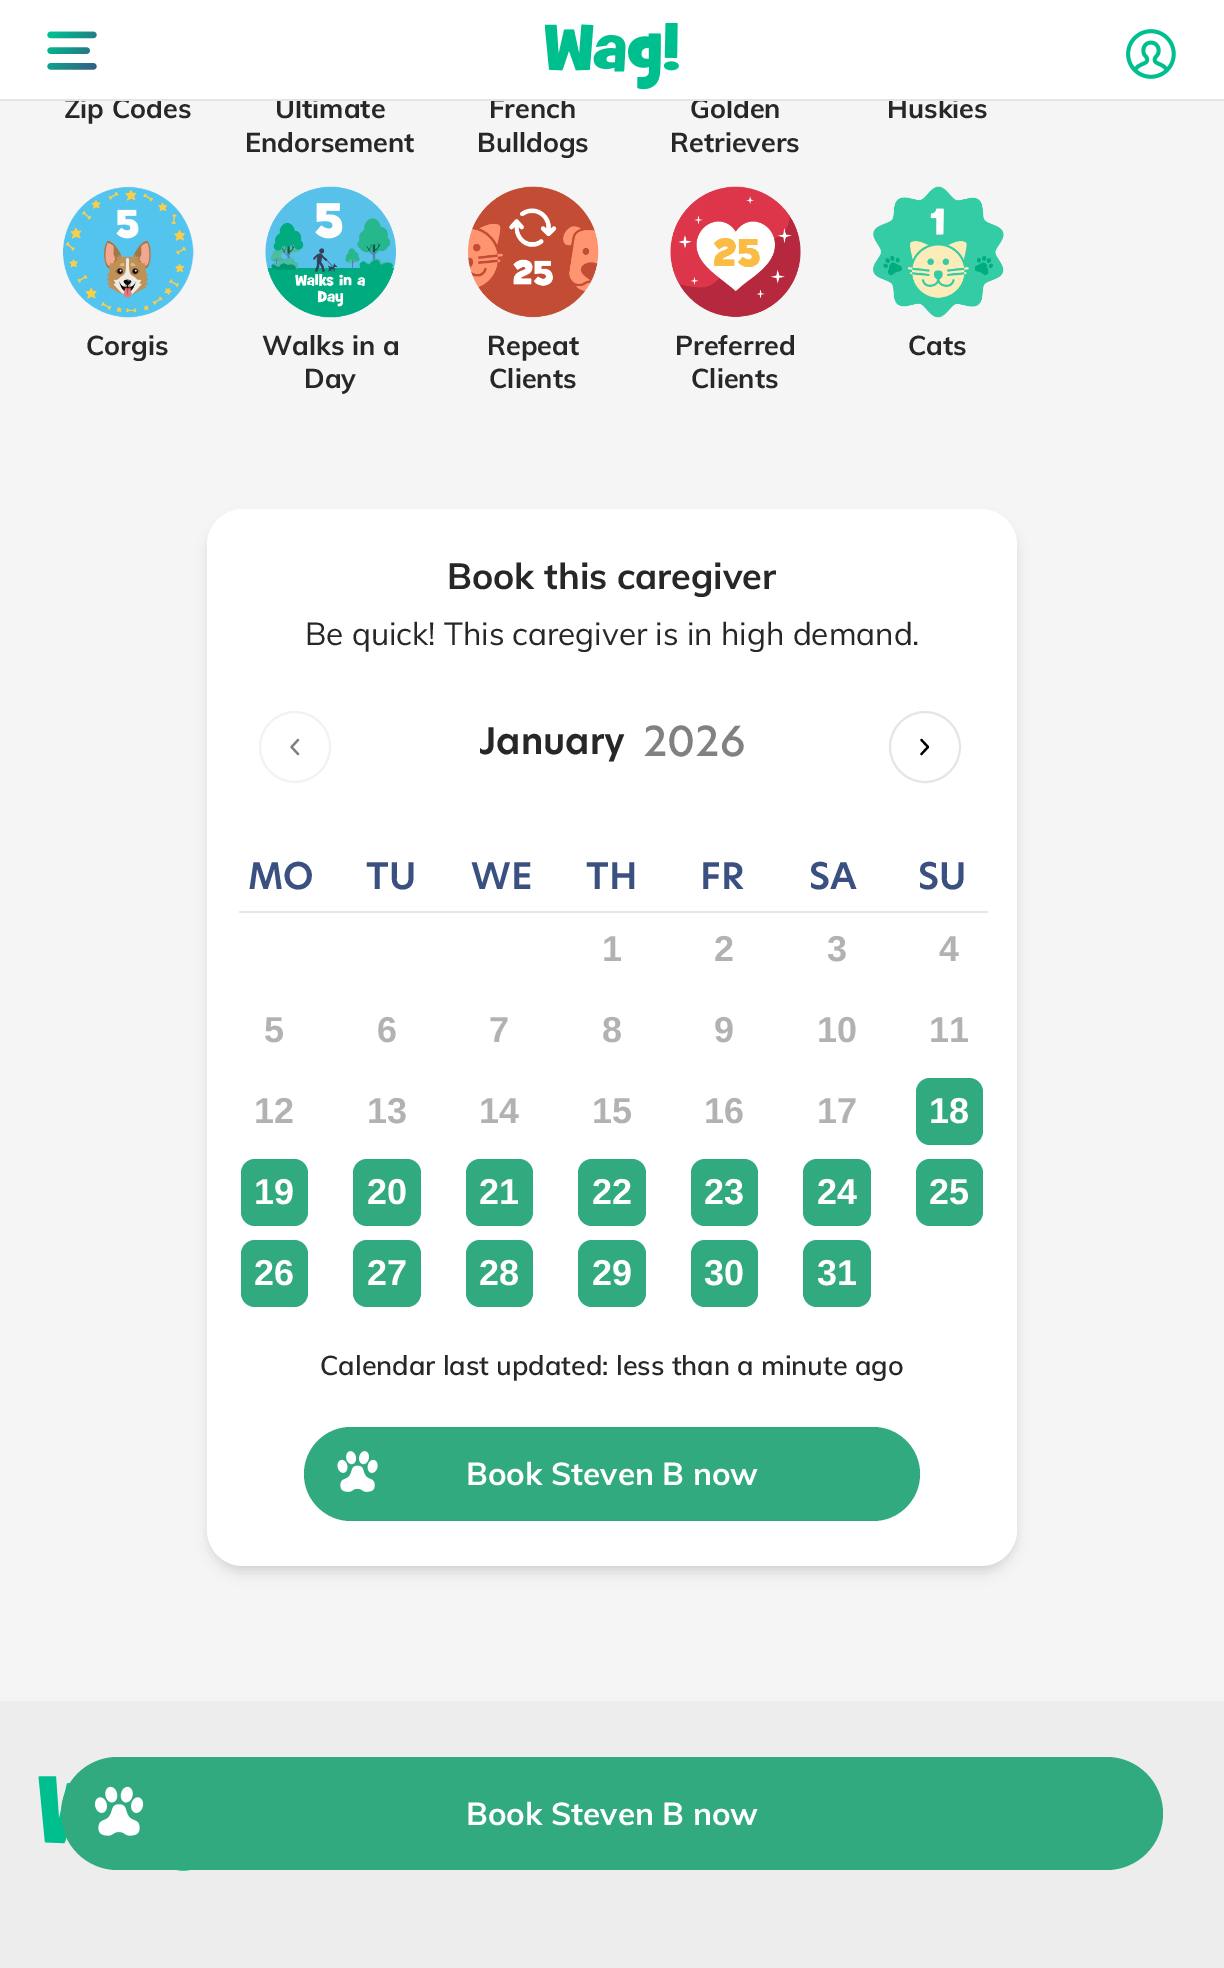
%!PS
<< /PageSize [1224 1968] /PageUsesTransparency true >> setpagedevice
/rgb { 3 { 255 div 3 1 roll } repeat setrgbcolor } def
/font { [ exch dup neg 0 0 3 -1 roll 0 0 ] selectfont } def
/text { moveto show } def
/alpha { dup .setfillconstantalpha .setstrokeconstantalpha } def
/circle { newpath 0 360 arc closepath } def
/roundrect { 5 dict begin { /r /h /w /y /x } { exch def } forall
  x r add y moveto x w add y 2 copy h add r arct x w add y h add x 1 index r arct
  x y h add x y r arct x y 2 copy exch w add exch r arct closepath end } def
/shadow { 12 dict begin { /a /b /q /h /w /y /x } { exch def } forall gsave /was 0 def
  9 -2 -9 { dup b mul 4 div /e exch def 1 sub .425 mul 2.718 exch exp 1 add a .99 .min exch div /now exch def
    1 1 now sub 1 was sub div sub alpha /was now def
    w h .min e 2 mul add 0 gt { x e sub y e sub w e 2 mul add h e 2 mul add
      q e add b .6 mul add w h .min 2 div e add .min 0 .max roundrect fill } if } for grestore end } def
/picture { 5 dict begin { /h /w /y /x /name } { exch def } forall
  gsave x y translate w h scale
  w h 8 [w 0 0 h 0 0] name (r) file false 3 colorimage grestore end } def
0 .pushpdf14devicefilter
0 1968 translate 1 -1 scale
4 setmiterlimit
237 237 237 rgb
0 0 1224 1968 rectfill
245 245 245 rgb
0 101 1224 1600 rectfill
(img_04.rgb) 63 186 131 132 picture
(img_05.rgb) 265 186 131 132 picture
(img_06.rgb) 468 186 131 132 picture
(img_07.rgb) 670 186 131 132 picture
(img_08.rgb) 873 186 131 132 picture
0 0 0 rgb
212 518 801 1048 32 4.5 0.1 shadow
209 520 806 1053 34 7 0.1 shadow
255 255 255 rgb
207 509 810 1057 36 roundrect fill
242 242 242 rgb
2 setlinewidth
295 747 35 circle stroke
128 128 128 rgb
2.2 setlinewidth
1 setlinecap
1 setlinejoin
298 754 moveto -6.5 -7 rlineto 6.5 -7 rlineto stroke
229 229 229 rgb
2 setlinewidth
0 setlinecap
0 setlinejoin
925 747 35 circle stroke
0 0 0 rgb
2.2 setlinewidth
1 setlinecap
1 setlinejoin
921.5 754 moveto 6.5 -7 rlineto -6.5 -7 rlineto stroke
229 231 235 rgb
239 911 749 2 rectfill
50 170 128 rgb
916 1078 67 67 14 roundrect fill
241 1159 67 67 14 roundrect fill
353 1159 68 67 14 roundrect fill
466 1159 67 67 14 roundrect fill
578 1159 68 67 14 roundrect fill
691 1159 67 67 14 roundrect fill
803 1159 68 67 14 roundrect fill
916 1159 67 67 14 roundrect fill
241 1240 67 67 14 roundrect fill
353 1240 68 67 14 roundrect fill
466 1240 67 67 14 roundrect fill
578 1240 68 67 14 roundrect fill
691 1240 67 67 14 roundrect fill
803 1240 68 67 14 roundrect fill
304 1427 616 94 47 roundrect fill
(img_09.rgb) 337 1451 41 41 picture
(img_11.rgb) 38 1776 152 95 picture
61 1757 1102 113 56.5 roundrect fill
(img_10.rgb) 95 1786 49 50 picture
/Muli-Bold 27 font
39 39 39 rgb
(Zip Codes) 64 118 text
(Ultimate) 275 118 text
(Endorsement) 245 152 text
(French) 489 118 text
(Bulldogs) 477 152 text
(Golden) 690 118 text
(Retrievers) 670 152 text
(Huskies) 887 118 text
255 255 255 rgb
0 0 1224 99 rectfill
(img_03.rgb) 1126 29 50 50 picture
(img_02.rgb) 545 23 134 67 picture
(img_01.rgb) 47 31 50 39 picture
229 229 229 rgb
0 99 1224 2 rectfill
39 39 39 rgb
(Corgis) 86 355 text
(Walks in a) 262 355 text
(Day) 304 388 text
(Repeat) 487 355 text
(Clients) 489 388 text
(Preferred) 675 355 text
(Clients) 691 388 text
(Cats) 908 355 text
/Muli-Bold 36 font
(Book this caregiver) 447 589 text
/Muli-Regular 31.5 font
(Be quick! This caregiver is in high demand.) 305 645 text
/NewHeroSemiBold-SemiBold 36 font
(January) 479 754 text
/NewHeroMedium-Medium 40.5 font
129 129 129 rgb
(2026) 643 756 text
/NewHeroSemiBold-SemiBold 36 font
58 80 128 rgb
(MO) 248 889 text
(TU) 366 889 text
(WE) 471 889 text
(TH) 586 889 text
(FR) 700 889 text
(SA) 809 889 text
(SU) 918 889 text
/LiberationSans-Bold 36 font
178 178 178 rgb
(1) 602 961 text
(2) 714 961 text
(3) 827 961 text
(4) 939 961 text
(5) 264 1042 text
(6) 377 1042 text
(7) 489 1042 text
(8) 602 1042 text
(9) 714 1042 text
(10) 817 1042 text
(11) 929 1042 text
(12) 254 1123 text
(13) 367 1123 text
(14) 479 1123 text
(15) 592 1123 text
(16) 704 1123 text
(17) 817 1123 text
255 255 255 rgb
(18) 929 1123 text
(19) 254 1204 text
(20) 367 1204 text
(21) 479 1204 text
(22) 592 1204 text
(23) 704 1204 text
(24) 817 1204 text
(25) 929 1204 text
(26) 254 1285 text
(27) 367 1285 text
(28) 479 1285 text
(29) 592 1285 text
(30) 704 1285 text
(31) 817 1285 text
/Muli-SemiBold 27 font
39 39 39 rgb
(Calendar last updated: less than a minute ago) 320 1375 text
/Muli-Bold 31.5 font
255 255 255 rgb
(Book Steven B now) 466 1485 text
(Book Steven B now) 466 1825 text
.poppdf14devicefilter showpage
